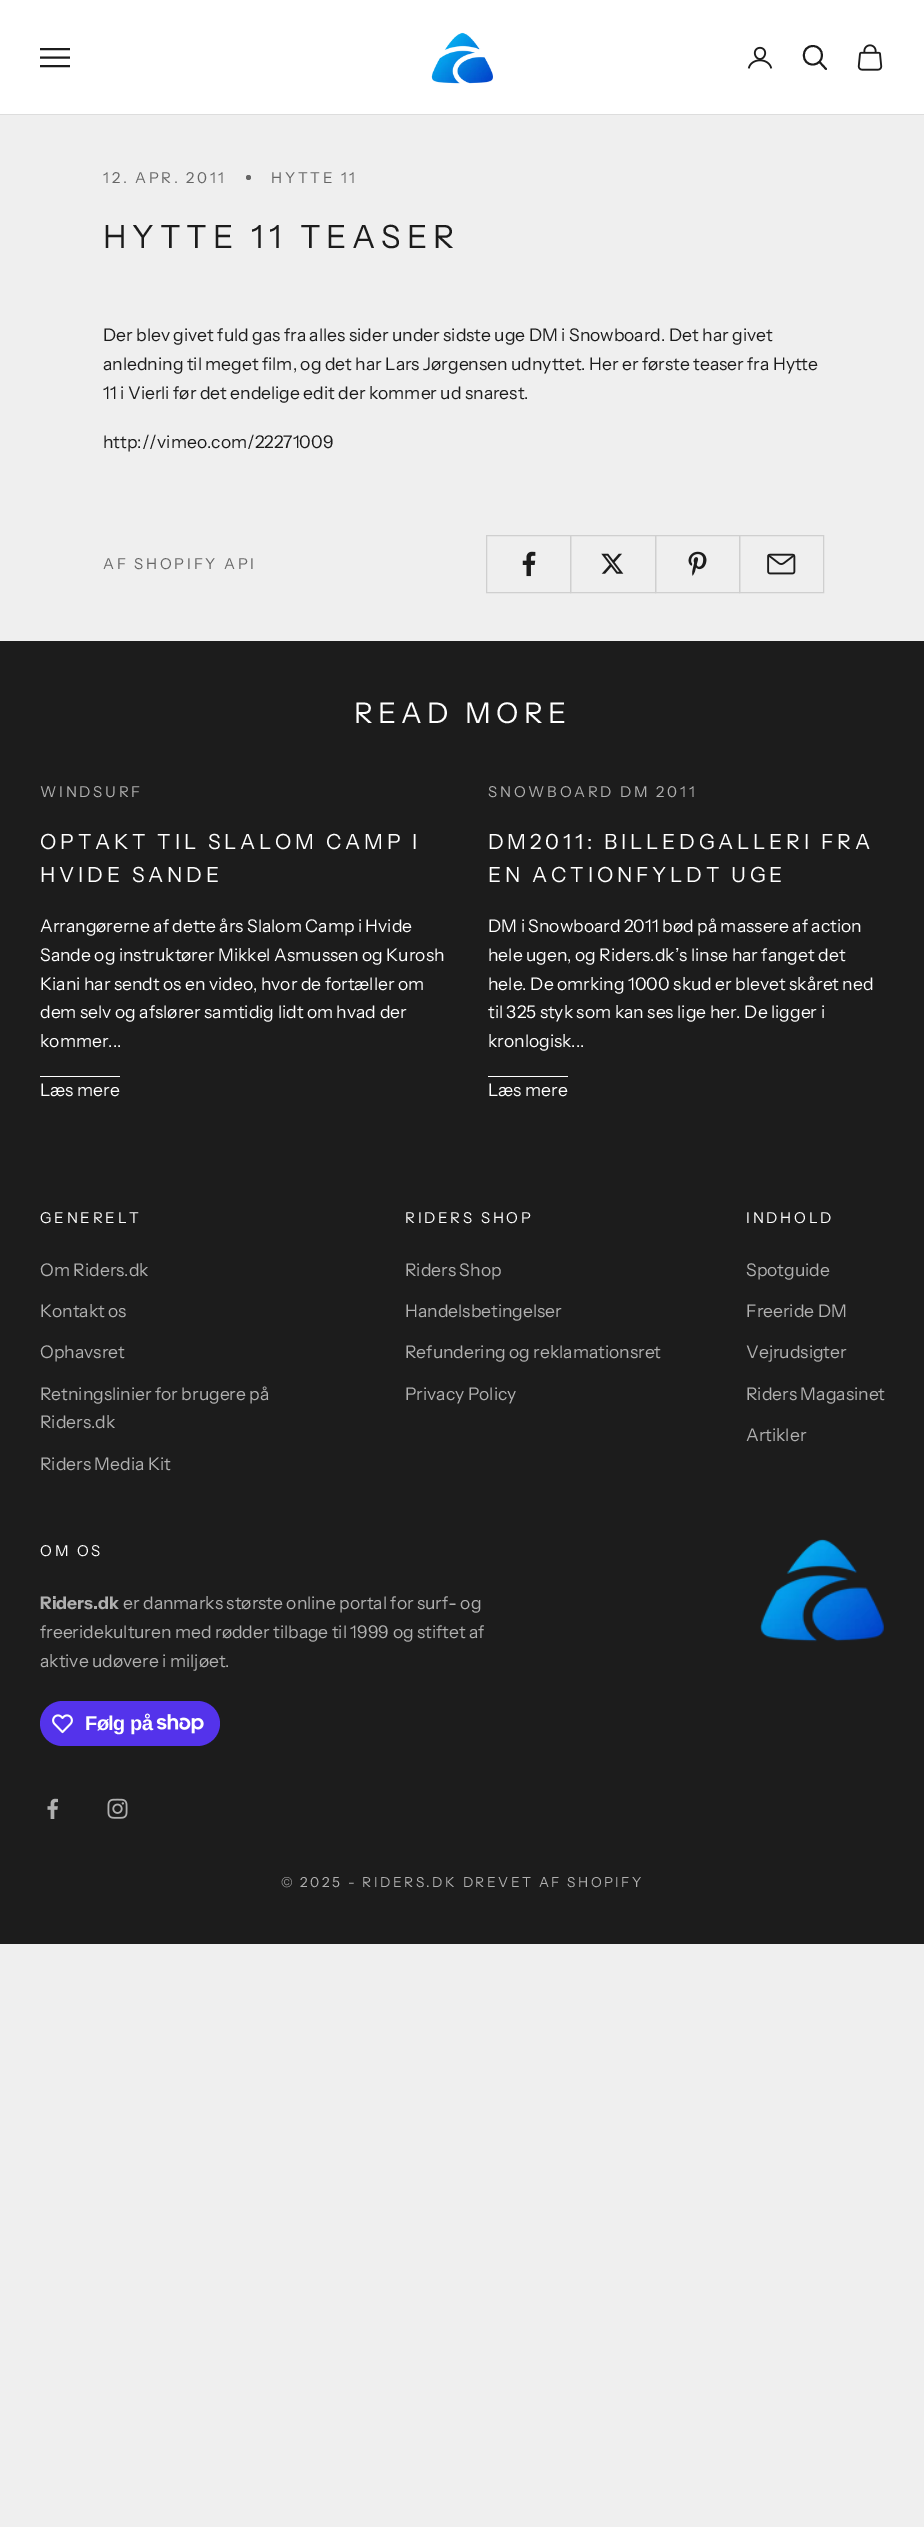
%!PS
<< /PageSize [924 2527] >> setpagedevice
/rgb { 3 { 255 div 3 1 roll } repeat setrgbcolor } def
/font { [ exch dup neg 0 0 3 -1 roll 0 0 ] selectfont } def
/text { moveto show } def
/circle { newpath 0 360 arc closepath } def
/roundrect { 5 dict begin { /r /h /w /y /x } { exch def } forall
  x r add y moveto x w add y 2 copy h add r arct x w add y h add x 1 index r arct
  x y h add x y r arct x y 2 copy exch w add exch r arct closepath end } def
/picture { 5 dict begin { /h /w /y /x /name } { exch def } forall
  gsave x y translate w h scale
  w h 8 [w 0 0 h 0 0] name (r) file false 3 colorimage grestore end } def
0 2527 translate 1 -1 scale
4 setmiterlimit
239 239 239 rgb
0 0 924 2527 rectfill
255 255 255 rgb
0 0 924 114 rectfill
221 221 221 rgb
0 114 924 1 rectfill
28 28 28 rgb
1.9 setlinewidth
2 setlinecap
41 66 moveto 28 0 rlineto 41 57.5 moveto 28 0 rlineto 41 49 moveto 28 0 rlineto stroke
(img_01.rgb) 431 32 62 52 picture
(img_02.rgb) 747 46 26 23 picture
0 setlinecap
813 46 moveto -12.5 0 -12 19 0 18.5 rcurveto 12 -0.5 12 -18 0 -18.5 rcurveto closepath stroke
1 setlinecap
820 62.5 moveto 6 6.5 rlineto stroke
(img_03.rgb) 857 44 26 27 picture
102 102 102 rgb
248.5 177.5 2.5 circle fill
207 207 207 rgb
1 setlinewidth
0 setlinecap
486.5 535.5 84 57 rectstroke
(img_04.rgb) 522 551 14 26 picture
570.5 535.5 85 57 rectstroke
(img_05.rgb) 601 553 23 21 picture
655.5 535.5 84 57 rectstroke
(img_06.rgb) 688 551 19 25 picture
739.5 535.5 84 57 rectstroke
(img_07.rgb) 767 553 29 22 picture
28 28 28 rgb
0 641 924 1303 rectfill
255 255 255 rgb
40 1076 80 1 rectfill
488 1076 80 1 rectfill
84 51 235 rgb
40 1701 180 45 22.5 roundrect fill
(img_08.rgb) 52 1714 21 20 picture
(img_09.rgb) 156 1714 48 20 picture
(img_10.rgb) 760 1539 124 103 picture
(img_11.rgb) 47 1798 11 21 picture
(img_12.rgb) 107 1798 21 21 picture
/InstrumentSans-Regular 15 font
102 102 102 rgb
103 183 moveto 2.75 0 (12. APR. 2011) ashow
271 183 moveto 2.75 0 (HYTTE 11) ashow
/InstrumentSans-Regular 32 font
28 28 28 rgb
103 248 moveto 5.75 0 (HYTTE 11 TEASER) ashow
/InstrumentSans-Regular 17.5 font
(Der blev givet fuld gas fra alles sider under sidste uge DM i Snowboard. Det har givet) 103 341 text
(anledning til meget film, og det har Lars Jørgensen udnyttet. Her er første teaser fra Hytte) 103 370 text
(11 i Vierli før det endelige edit der kommer ud snarest.) 103 399 text
(http://vimeo.com/22271009) 103 448 text
/InstrumentSans-Regular 15 font
102 102 102 rgb
103 569 moveto 2.75 0 (AF SHOPIFY API) ashow
/InstrumentSans-Regular 28.5 font
255 255 255 rgb
354 723 moveto 5.25 0 (READ MORE) ashow
/InstrumentSans-Regular 15 font
176 176 176 rgb
40 797 moveto 2.75 0 (WINDSURF) ashow
/InstrumentSans-Regular 20.9 font
255 255 255 rgb
40 849 moveto 3.75 0 (OPTAKT TIL SLALOM CAMP I) ashow
40 882 moveto 3.75 0 (HVIDE SANDE) ashow
/InstrumentSans-Regular 17.5 font
(Arrangørerne af dette års Slalom Camp i Hvide) 40 932 text
(Sande og instruktører Mikkel Asmussen og Kurosh) 40 961 text
(Kiani har sendt os en video, hvor de fortæller om) 40 990 text
(dem selv og afslører samtidig lidt om hvad der) 40 1018 text
(kommer...) 40 1047 text
(Læs mere) 40 1096 text
/InstrumentSans-Regular 15 font
176 176 176 rgb
488 797 moveto 2.75 0 (SNOWBOARD DM 2011) ashow
/InstrumentSans-Regular 20.9 font
255 255 255 rgb
488 849 moveto 3.75 0 (DM2011: BILLEDGALLERI FRA) ashow
488 882 moveto 3.75 0 (EN ACTIONFYLDT UGE) ashow
/InstrumentSans-Regular 17.5 font
(DM i Snowboard 2011 bød på massere af action) 488 932 text
(hele ugen, og Riders.dk’s linse har fanget det) 488 961 text
(hele. De omrking 1000 skud er blevet skåret ned) 488 990 text
(til 325 styk som kan ses lige her. De ligger i) 488 1018 text
(kronlogisk...) 488 1047 text
(Læs mere) 488 1096 text
/InstrumentSans-Regular 15 font
40 1223 moveto 2.75 0 (GENERELT) ashow
/InstrumentSans-Regular 17.5 font
176 176 176 rgb
(Om Riders.dk) 40 1276 text
(Kontakt os) 40 1317 text
(Ophavsret) 40 1358 text
(Retningslinier for brugere på) 40 1400 text
(Riders.dk) 40 1428 text
(Riders Media Kit) 40 1470 text
/InstrumentSans-Regular 15 font
255 255 255 rgb
405 1223 moveto 2.75 0 (RIDERS SHOP) ashow
/InstrumentSans-Regular 17.5 font
176 176 176 rgb
(Riders Shop) 405 1276 text
(Handelsbetingelser) 405 1317 text
(Refundering og reklamationsret) 405 1358 text
(Privacy Policy) 405 1400 text
/InstrumentSans-Regular 15 font
255 255 255 rgb
746 1223 moveto 2.75 0 (INDHOLD) ashow
/InstrumentSans-Regular 17.5 font
176 176 176 rgb
(Spotguide) 746 1276 text
(Freeride DM) 746 1317 text
(Vejrudsigter) 746 1358 text
(Riders Magasinet) 746 1400 text
(Artikler) 746 1441 text
/InstrumentSans-Regular 15 font
255 255 255 rgb
40 1556 moveto 2.75 0 (OM OS) ashow
/InstrumentSans-Bold 17.5 font
176 176 176 rgb
(Riders.dk) 40 1609 text
/InstrumentSans-Regular 17.5 font
(er danmarks største online portal for surf- og) 123 1609 text
(freeridekulturen med rødder tilbage til 1999 og stiftet af) 40 1638 text
(aktive udøvere i miljøet.) 40 1667 text
/LiberationSans-Bold 20 font
255 255 255 rgb
85 1730 moveto -0.5 0 (Følg på) ashow
/InstrumentSans-Regular 13.75 font
176 176 176 rgb
281 1887 moveto 2.5 0 (© 2025 - RIDERS.DK DREVET AF SHOPIFY) ashow
showpage
